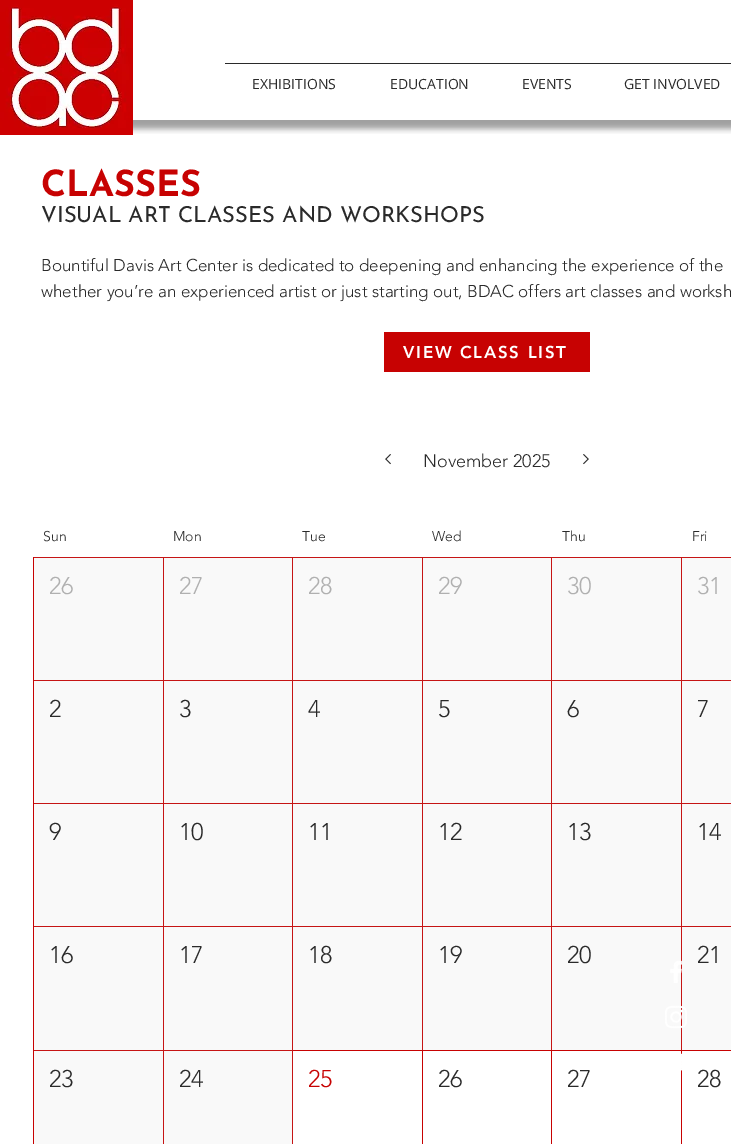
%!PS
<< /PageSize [731 1144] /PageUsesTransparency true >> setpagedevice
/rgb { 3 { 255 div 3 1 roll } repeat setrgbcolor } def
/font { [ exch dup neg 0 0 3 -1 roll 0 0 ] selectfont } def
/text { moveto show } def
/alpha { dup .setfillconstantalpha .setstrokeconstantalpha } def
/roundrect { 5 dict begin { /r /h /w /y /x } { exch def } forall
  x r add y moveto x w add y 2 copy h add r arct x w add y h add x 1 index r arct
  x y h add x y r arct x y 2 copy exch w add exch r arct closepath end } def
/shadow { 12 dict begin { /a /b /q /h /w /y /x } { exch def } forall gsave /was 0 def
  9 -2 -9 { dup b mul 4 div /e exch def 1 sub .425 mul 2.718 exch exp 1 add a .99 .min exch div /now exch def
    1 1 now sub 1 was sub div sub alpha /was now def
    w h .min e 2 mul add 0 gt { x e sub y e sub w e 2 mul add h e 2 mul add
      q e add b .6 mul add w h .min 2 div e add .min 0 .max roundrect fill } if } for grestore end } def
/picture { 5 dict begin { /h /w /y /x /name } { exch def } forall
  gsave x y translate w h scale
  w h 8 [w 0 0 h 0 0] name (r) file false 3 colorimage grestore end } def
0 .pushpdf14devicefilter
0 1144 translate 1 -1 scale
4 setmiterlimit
255 255 255 rgb
0 0 731 1144 rectfill
249 249 249 rgb
164 1051 128 93 rectfill
34 1051 129 93 rectfill
682 927 49 123 rectfill
423 927 128 123 rectfill
164 927 128 123 rectfill
682 804 49 122 rectfill
552 804 129 122 rectfill
423 804 128 122 rectfill
293 804 129 122 rectfill
164 804 128 122 rectfill
34 804 129 122 rectfill
682 681 49 122 rectfill
552 681 129 122 rectfill
423 681 128 122 rectfill
293 681 129 122 rectfill
164 681 128 122 rectfill
34 681 129 122 rectfill
682 558 49 122 rectfill
552 558 129 122 rectfill
423 558 128 122 rectfill
293 558 129 122 rectfill
164 558 128 122 rectfill
34 558 129 122 rectfill
gsave
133 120 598 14 rectclip
0 0 0 rgb
-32 3 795 126 23 3 0.38 shadow
grestore
(img_01.rgb) 0 0 133 135 picture
42 42 42 rgb
225 63 506 1 rectfill
199 2 2 rgb
384 332 206 40 rectfill
(img_02.rgb) 385 454 6 11 picture
(img_03.rgb) 583 454 6 11 picture
198 21 21 rgb
34 557 697 1 rectfill
34 680 697 1 rectfill
34 803 697 1 rectfill
34 926 697 1 rectfill
249 249 249 rgb
34 927 129 123 rectfill
293 927 129 123 rectfill
198 21 21 rgb
422 557 1 493 rectfill
551 557 1 493 rectfill
249 249 249 rgb
552 927 129 123 rectfill
198 21 21 rgb
681 557 1 493 rectfill
199 2 2 rgb
293 1050 438 1 rectfill
198 21 21 rgb
34 1050 259 1 rectfill
199 2 2 rgb
33 557 1 587 rectfill
198 21 21 rgb
163 557 1 587 rectfill
292 557 1 587 rectfill
199 2 2 rgb
422 1050 1 94 rectfill
551 1050 1 94 rectfill
681 1050 1 94 rectfill
(img_04.rgb) 670 960 12 23 picture
(img_05.rgb) 665 1005 22 24 picture
(img_06.rgb) 681 1053 1 18 picture
/OpenSans-Regular 14 font
42 42 42 rgb
(EXHIBITIONS) 252 89 text
(EDUCATION) 390 89 text
(EVENTS) 522 89 text
(GET INVOLVED) 624 89 text
/JosefinSans-Bold 36 font
199 2 2 rgb
(CLASSES) 41 196 text
/JosefinSans-Regular 22 font
42 42 42 rgb
(VISUAL ART CLASSES AND WORKSHOPS) 41 222 text
/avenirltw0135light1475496-Light 17 font
(Bountiful Davis Art Center is dedicated to deepening and enhancing the experience of the) 41 271 text
(whether you’re an experienced artist or just starting out, BDAC offers art classes and worksh) 41 297 text
/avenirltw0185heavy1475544-Black 17 font
255 255 255 rgb
403 358 moveto 1.75 0 (VIEW CLASS LIST) ashow
/avenirltw0135light1475496-Light 18 font
42 42 42 rgb
(November 2025) 423 467 text
/avenirltw0135light1475496-Light 14 font
(Sun) 43 541 text
(Mon) 173 541 text
(Tue) 302 541 text
(Wed) 432 541 text
(Thu) 562 541 text
(Fri) 692 541 text
/avenirltw0135light1475496-Light 24 font
176 176 176 rgb
(26) 49 594 text
(27) 179 594 text
(28) 308 594 text
(29) 438 594 text
(30) 567 594 text
(31) 697 594 text
42 42 42 rgb
(2) 49 717 text
(3) 179 717 text
(4) 308 717 text
(5) 438 717 text
(6) 567 717 text
(7) 697 717 text
(9) 49 840 text
(10) 179 840 text
(11) 308 840 text
(12) 438 840 text
(13) 567 840 text
(14) 697 840 text
(16) 49 963 text
(17) 179 963 text
(18) 308 963 text
(19) 438 963 text
(20) 567 963 text
(21) 697 963 text
(23) 49 1087 text
(24) 179 1087 text
199 2 2 rgb
(25) 308 1087 text
42 42 42 rgb
(26) 438 1087 text
(27) 567 1087 text
(28) 697 1087 text
.poppdf14devicefilter showpage
